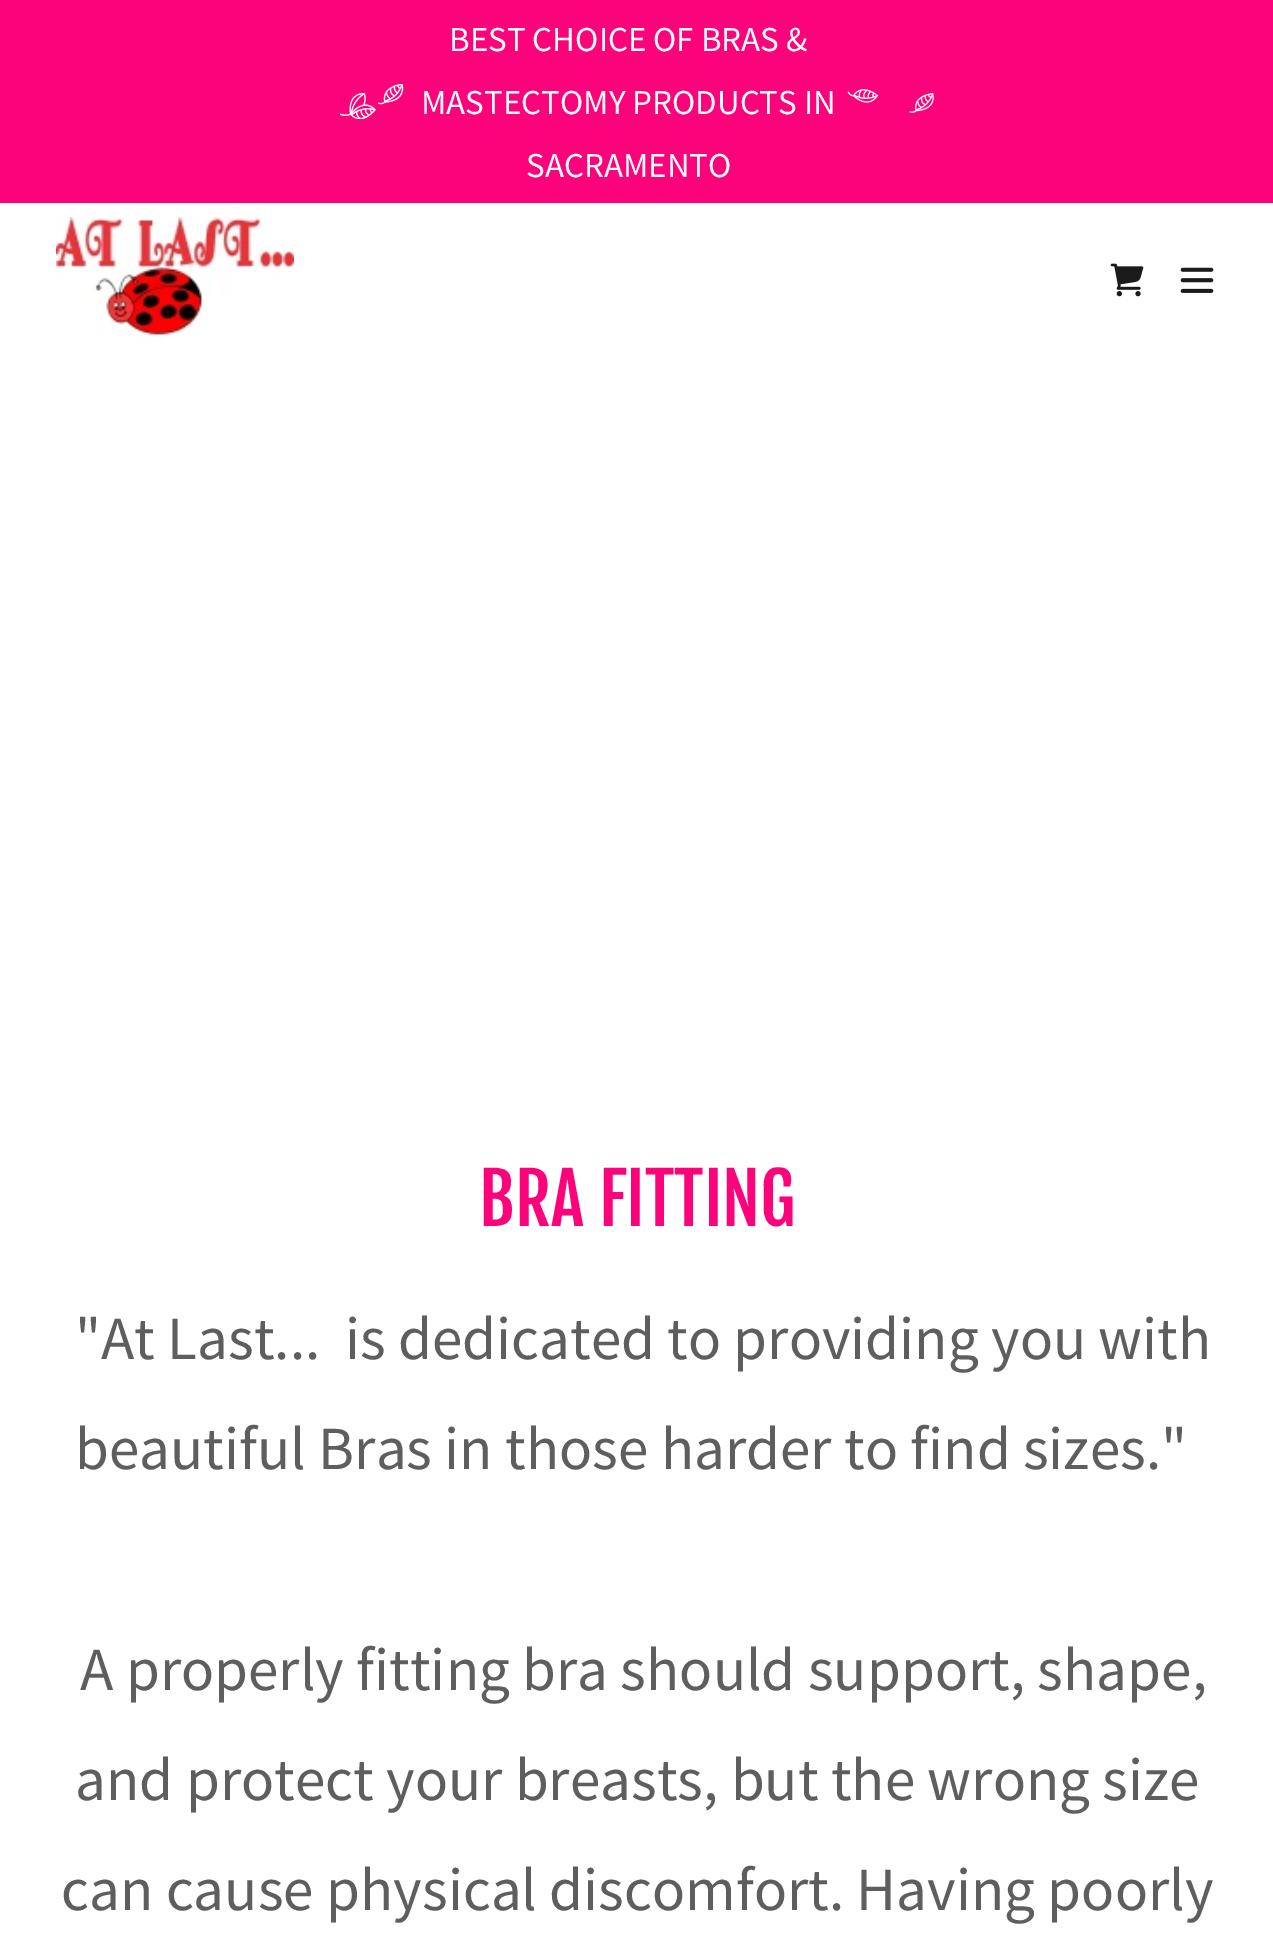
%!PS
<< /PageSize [1273 1935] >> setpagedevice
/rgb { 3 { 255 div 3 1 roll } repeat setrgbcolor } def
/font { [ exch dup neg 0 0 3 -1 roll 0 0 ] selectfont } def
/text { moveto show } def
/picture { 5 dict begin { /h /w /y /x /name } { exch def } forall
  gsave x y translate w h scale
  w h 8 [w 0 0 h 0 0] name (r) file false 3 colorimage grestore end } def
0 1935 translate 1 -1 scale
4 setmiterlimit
255 255 255 rgb
0 0 1273 1935 rectfill
252 3 123 rgb
0 0 1273 203 rectfill
(img_01.rgb) 340 84 64 35 picture
(img_02.rgb) 847 89 87 24 picture
(img_03.rgb) 56 217 238 126 picture
(img_04.rgb) 1110 263 34 34 picture
(img_05.rgb) 1180 267 34 26 picture
/SourceSansPro-Regular 35 font
255 255 255 rgb
(BEST CHOICE OF BRAS &) 449 51 text
(MASTECTOMY PRODUCTS IN) 421 114 text
(SACRAMENTO) 526 177 text
/FjallaOne-Regular 70 font
252 3 123 rgb
(BRA FITTING) 479 1226 text
/SourceSansPro-Regular 61.25 font
94 94 94 rgb
("At Last...  is dedicated to providing you with) 75 1359 text
(beautiful Bras in those harder to find sizes.") 75 1469 text
(A properly fitting bra should support, shape,) 80 1690 text
(and protect your breasts, but the wrong size) 75 1800 text
(can cause physical discomfort. Having poorly) 61 1910 text
showpage
